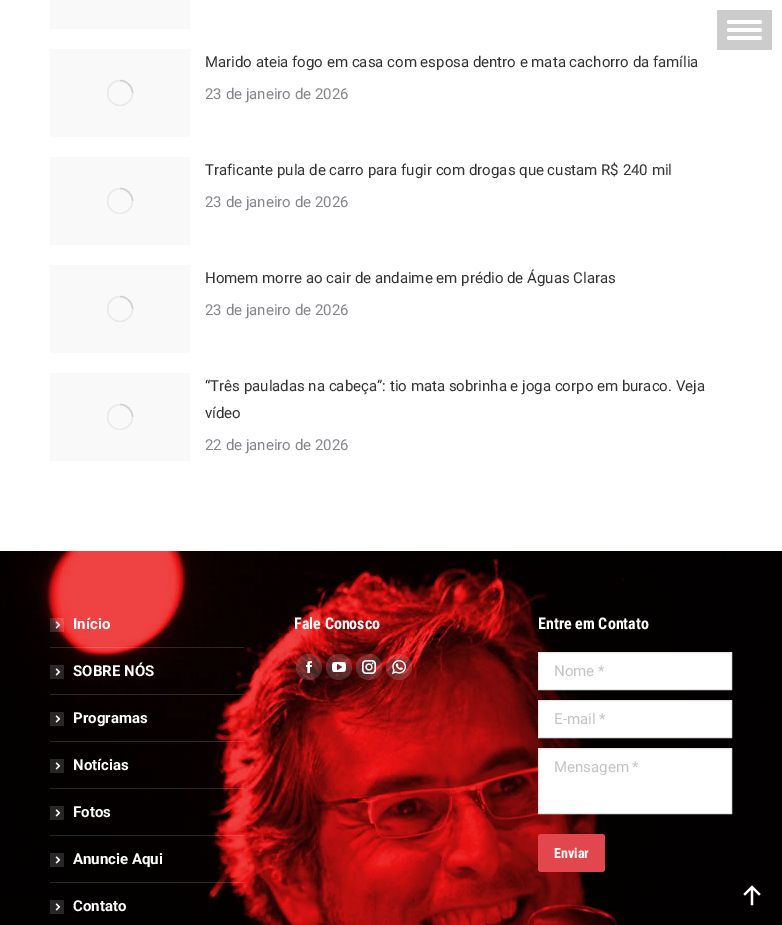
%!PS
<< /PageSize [782 925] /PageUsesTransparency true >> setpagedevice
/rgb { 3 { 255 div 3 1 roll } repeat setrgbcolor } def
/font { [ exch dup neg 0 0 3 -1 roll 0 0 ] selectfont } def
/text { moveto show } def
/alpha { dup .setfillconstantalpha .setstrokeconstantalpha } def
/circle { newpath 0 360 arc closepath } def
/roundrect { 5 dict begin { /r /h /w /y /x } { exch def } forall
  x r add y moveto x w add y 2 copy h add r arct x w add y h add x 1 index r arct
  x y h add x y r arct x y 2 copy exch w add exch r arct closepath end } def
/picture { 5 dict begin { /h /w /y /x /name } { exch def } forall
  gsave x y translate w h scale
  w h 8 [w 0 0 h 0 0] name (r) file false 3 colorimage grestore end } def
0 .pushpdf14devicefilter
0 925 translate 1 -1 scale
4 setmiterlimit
255 255 255 rgb
0 0 782 925 rectfill
204 204 204 rgb
717 10 55 40 rectfill
255 255 255 rgb
727 20 35 4 2 roundrect fill
727 28 35 4 2 roundrect fill
727 36 35 4 2 roundrect fill
249 249 249 rgb
50 0 140 29 rectfill
50 49 140 88 rectfill
gsave
107 80 26 26 rectclip
233 233 234 rgb
1.4 setlinewidth
120 93 12.5 circle stroke
grestore
0.25 alpha
133 134 140 rgb
1.4 setlinewidth
132.5 93 moveto 0 -6.5 -5.5 -12.5 -12.5 -12.5 rcurveto stroke
1 alpha
249 249 249 rgb
50 157 140 88 rectfill
gsave
107 188 26 26 rectclip
233 233 234 rgb
120 201 12.5 circle stroke
grestore
0.25 alpha
133 134 140 rgb
132.5 201 moveto 0 -6.5 -5.5 -12.5 -12.5 -12.5 rcurveto stroke
1 alpha
249 249 249 rgb
50 265 140 88 rectfill
gsave
107 296 26 26 rectclip
233 233 234 rgb
120 309 12.5 circle stroke
grestore
0.25 alpha
133 134 140 rgb
132.5 309 moveto 0 -6.5 -5.5 -12.5 -12.5 -12.5 rcurveto stroke
1 alpha
249 249 249 rgb
50 373 140 88 rectfill
gsave
107 404 26 26 rectclip
233 233 234 rgb
120 417 12.5 circle stroke
grestore
0.25 alpha
133 134 140 rgb
132.5 417 moveto 0 -6.5 -5.5 -12.5 -12.5 -12.5 rcurveto stroke
1 alpha
(img_01.rgb) 0 551 782 374 picture
0.15 alpha
255 255 255 rgb
50 618 14 14 rectfill
1 alpha
(img_02.rgb) 55 621 6 8 picture
0.15 alpha
50 647 194 1 rectfill
50 665 14 14 rectfill
1 alpha
(img_03.rgb) 55 668 6 8 picture
0.15 alpha
50 694 194 1 rectfill
1 alpha
42 38 38 rgb
50 712 14 14 rectfill
(img_04.rgb) 55 715 6 8 picture
0.15 alpha
255 255 255 rgb
50 741 194 1 rectfill
1 alpha
41 39 38 rgb
50 759 14 14 rectfill
(img_05.rgb) 55 762 6 8 picture
0.15 alpha
255 255 255 rgb
50 788 194 1 rectfill
1 alpha
40 39 38 rgb
50 806 14 14 rectfill
(img_06.rgb) 55 809 6 8 picture
0.15 alpha
255 255 255 rgb
50 835 194 1 rectfill
1 alpha
40 39 39 rgb
50 853 14 14 rectfill
(img_07.rgb) 55 856 6 8 picture
0.15 alpha
255 255 255 rgb
50 882 194 1 rectfill
1 alpha
40 38 39 rgb
50 900 14 14 rectfill
(img_08.rgb) 55 903 6 8 picture
0.15 alpha
255 255 255 rgb
309 667 13 circle fill
1 alpha
(img_09.rgb) 306 661 6 12 picture
0.15 alpha
339 667 13 circle fill
1 alpha
(img_10.rgb) 332 662 14 10 picture
0.15 alpha
369 667 13 circle fill
1 alpha
(img_11.rgb) 362 660 14 14 picture
0.15 alpha
399 667 13 circle fill
1 alpha
(img_12.rgb) 392 660 14 14 picture
538.5 652.5 moveto 193 0 rlineto 0 37 rlineto -193 0 rlineto closepath gsave fill grestore
231 231 231 rgb
1 setlinewidth
stroke
255 255 255 rgb
538.5 700.5 moveto 193 0 rlineto 0 37 rlineto -193 0 rlineto closepath gsave fill grestore
231 231 231 rgb
stroke
255 255 255 rgb
538.5 748.5 moveto 193 0 rlineto 0 65 rlineto -193 0 rlineto closepath gsave fill grestore
231 231 231 rgb
stroke
225 71 77 rgb
538 834 67 38 3 roundrect fill
(img_13.rgb) 743 885 18 21 picture
/Roboto-Regular 15 font
51 51 51 rgb
(Marido ateia fogo em casa com esposa dentro e mata cachorro da família) 205 67 text
133 134 140 rgb
(23 de janeiro de 2026) 205 99 text
51 51 51 rgb
(Traficante pula de carro para fugir com drogas que custam R$ 240 mil) 205 175 text
133 134 140 rgb
(23 de janeiro de 2026) 205 207 text
51 51 51 rgb
(Homem morre ao cair de andaime em prédio de Águas Claras) 205 283 text
133 134 140 rgb
(23 de janeiro de 2026) 205 315 text
51 51 51 rgb
(“Três pauladas na cabeça”: tio mata sobrinha e joga corpo em buraco. Veja) 205 391 text
(vídeo) 205 418 text
133 134 140 rgb
(22 de janeiro de 2026) 205 450 text
/Roboto-Bold 15 font
255 255 255 rgb
(Início) 73 629 text
(SOBRE NÓS) 73 676 text
(Programas) 73 723 text
(Notícias) 73 770 text
(Fotos) 73 817 text
(Anuncie Aqui) 73 864 text
(Contato) 73 911 text
/RobotoCondensed-Bold 16 font
(Fale Conosco) 294 629 text
(Entre em Contato) 538 629 text
/Roboto-Regular 15 font
194 195 198 rgb
(Nome *) 554 676 text
(E-mail *) 554 724 text
(Mensagem *) 554 772 text
/RobotoCondensed-Bold 14 font
255 255 255 rgb
(Enviar) 554 858 text
.poppdf14devicefilter showpage
